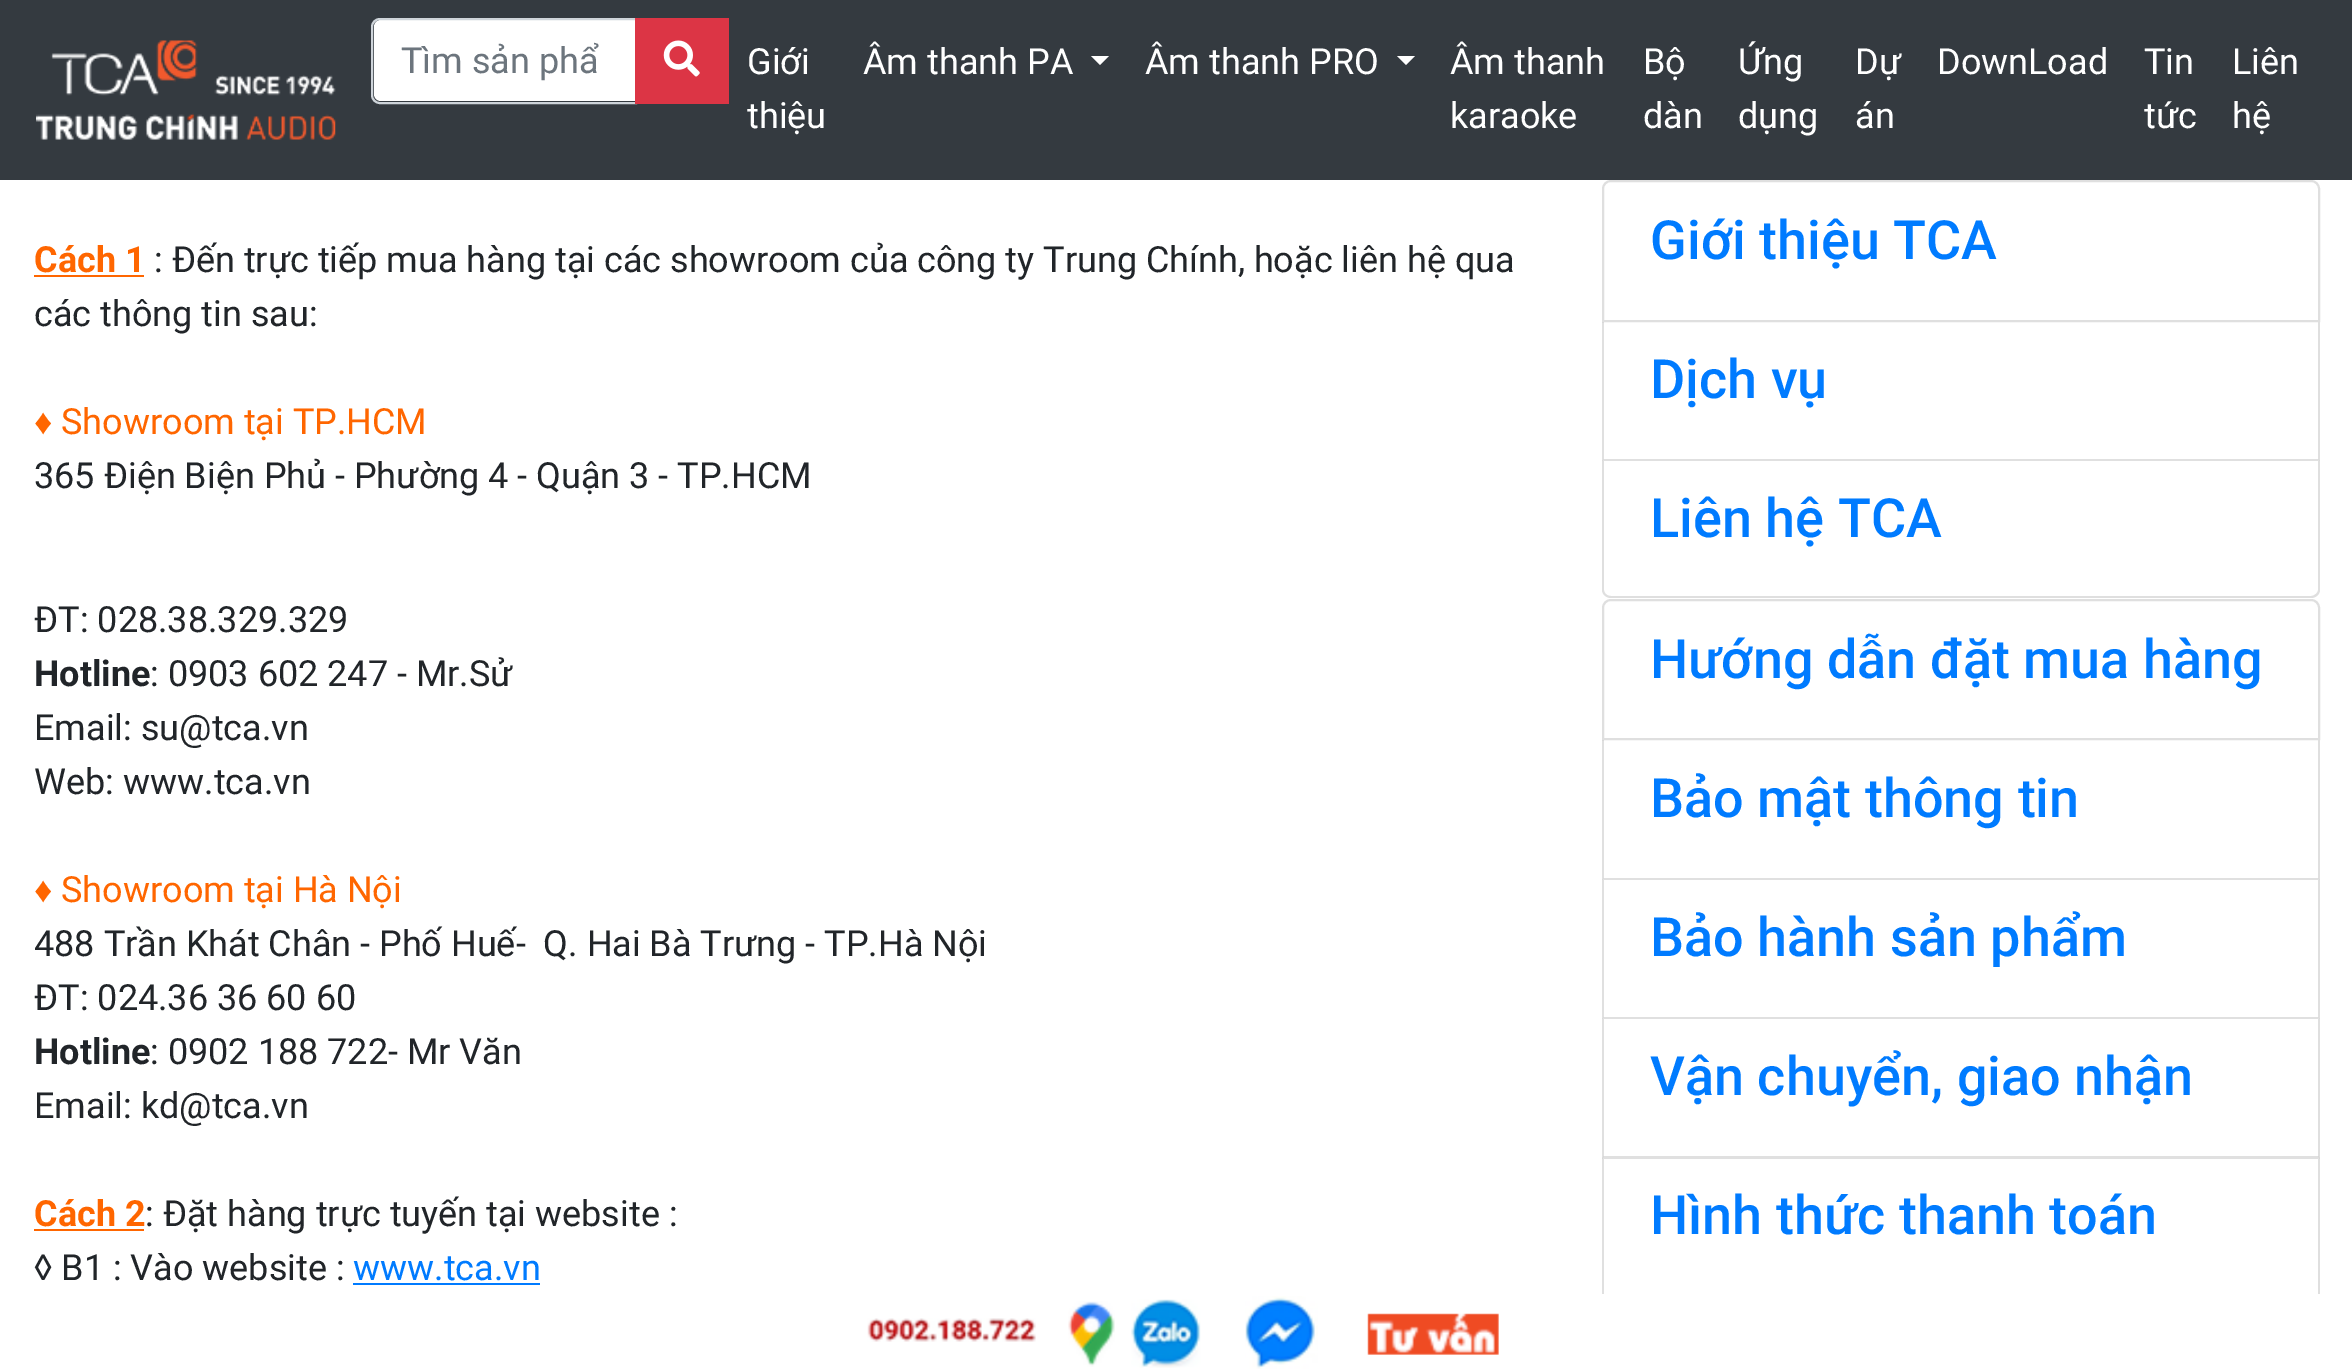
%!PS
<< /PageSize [2352 1371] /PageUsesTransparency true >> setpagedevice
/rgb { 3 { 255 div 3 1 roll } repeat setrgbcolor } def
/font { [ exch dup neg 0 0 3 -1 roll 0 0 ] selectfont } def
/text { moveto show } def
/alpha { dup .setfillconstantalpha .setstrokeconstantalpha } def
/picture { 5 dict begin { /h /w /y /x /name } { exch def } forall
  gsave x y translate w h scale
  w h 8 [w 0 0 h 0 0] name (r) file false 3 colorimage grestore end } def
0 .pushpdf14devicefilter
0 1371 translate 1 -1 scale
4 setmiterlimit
255 255 255 rgb
0 0 2352 1371 rectfill
52 58 64 rgb
0 0 2352 180 rectfill
(img_01.rgb) 36 40 300 100 picture
255 255 255 rgb
381 20 moveto 254 0 rlineto 0 81 rlineto -254 0 rlineto -4 0 -7 -3 -7 -7 rcurveto 0 -67 rlineto 0 -4 3 -7 7 -7 rcurveto closepath fill
206 212 218 rgb
2 setlinewidth
380 19 moveto 256 0 rlineto 0 84 rlineto -256 0 rlineto -4.5 0 -8 -3.5 -8 -8 rcurveto 0 -68 rlineto 0 -4.5 3.5 -8 8 -8 rcurveto closepath stroke
220 53 69 rgb
635 18 94 86 rectfill
(img_02.rgb) 663 40 37 37 picture
255 255 255 rgb
1091 56 moveto 18 0 rlineto -9 9 rlineto closepath fill
1397 56 moveto 18 0 rlineto -9 9 rlineto closepath fill
255 102 0 rgb
34 275 110 2 rectfill
34 1229 110 2 rectfill
0 123 255 rgb
353 1283 187 2 rectfill
223 223 223 rgb
1611 181 moveto 700 0 rlineto 4.5 0 8 3.5 8 8 rcurveto 0 132 rlineto -716 0 rlineto 0 -132 rlineto 0 -4.5 3.5 -8 8 -8 rcurveto closepath stroke
2320 322 moveto 0 139 rlineto -2 -2 rlineto 0 -137 rlineto closepath fill
0.12 alpha
0 0 0 rgb
2320 461 moveto -718 0 rlineto 2 -2 rlineto 714 0 rlineto closepath fill
1602 461 moveto 0 -139 rlineto 2 0 rlineto 0 137 rlineto closepath fill
1 alpha
223 223 223 rgb
1602 461 moveto 718 0 rlineto 0 129 rlineto 0 4 -4 8 -9 8 rcurveto -700 0 rlineto -5 0 -9 -4 -9 -8 rcurveto closepath 1604 461 moveto 714 0 rlineto 0 129 rlineto 0 3 -4 6 -7 6 rcurveto -700 0 rlineto -4 0 -7 -3 -7 -6 rcurveto closepath eofill
1611 600 moveto 700 0 rlineto 4.5 0 8 3.5 8 8 rcurveto 0 131 rlineto -716 0 rlineto 0 -131 rlineto 0 -4.5 3.5 -8 8 -8 rcurveto closepath stroke
2320 740 moveto 0 140 rlineto -2 -2 rlineto 0 -138 rlineto closepath fill
0.12 alpha
0 0 0 rgb
2320 880 moveto -718 0 rlineto 2 -2 rlineto 714 0 rlineto closepath fill
1602 880 moveto 0 -140 rlineto 2 0 rlineto 0 138 rlineto closepath fill
1 alpha
223 223 223 rgb
2320 880 moveto 0 139 rlineto -2 -2 rlineto 0 -137 rlineto closepath fill
0.12 alpha
0 0 0 rgb
2320 1019 moveto -718 0 rlineto 2 -2 rlineto 714 0 rlineto closepath fill
1602 1019 moveto 0 -139 rlineto 2 0 rlineto 0 137 rlineto closepath fill
1 alpha
223 223 223 rgb
2320 1019 moveto 0 140 rlineto -2 -3 rlineto 0 -137 rlineto closepath fill
0.12 alpha
0 0 0 rgb
2320 1159 moveto -718 0 rlineto 2 -3 rlineto 714 0 rlineto closepath fill
1602 1159 moveto 0 -140 rlineto 2 0 rlineto 0 137 rlineto closepath fill
1 alpha
223 223 223 rgb
2320 1159 moveto 0 137 rlineto -2 -2 rlineto 0 -135 rlineto closepath fill
0.12 alpha
0 0 0 rgb
1602 1296 moveto 0 -137 rlineto 2 0 rlineto 0 135 rlineto closepath fill
1 alpha
255 255 255 rgb
1602 1294 718 2 rectfill
(img_03.rgb) 867 1318 169 24 picture
(img_04.rgb) 1068 1301 47 66 picture
(img_05.rgb) 1131 1299 70 69 picture
(img_06.rgb) 1245 1296 73 73 picture
(img_07.rgb) 1367 1313 132 42 picture
/Roboto-Regular 36 font
108 117 125 rgb
(Tìm sản phẩ) 401 73 text
255 255 255 rgb
(Giới) 747 74 text
(thiệu) 747 128 text
(Âm thanh PA) 863 74 text
(Âm thanh PRO) 1145 74 text
(Âm thanh) 1450 74 text
(karaoke) 1450 128 text
(Bộ) 1643 74 text
(dàn) 1643 128 text
(Ứng) 1738 74 text
(dụng) 1738 128 text
(Dự) 1855 74 text
(án) 1855 128 text
(DownLoad) 1937 74 text
(Tin) 2144 74 text
(tức) 2144 128 text
(Liên) 2232 74 text
(hệ) 2232 128 text
/Roboto-Bold 36 font
255 102 0 rgb
(Cách 1) 34 272 text
/Roboto-Regular 36 font
33 37 41 rgb
(: Đến trực tiếp mua hàng tại các showroom của công ty Trung Chính, hoặc liên hệ qua) 154 272 text
(các thông tin sau:) 34 326 text
/LiberationSans-Regular 36 font
255 102 0 rgb
(♦) 34 434 text
/Roboto-Regular 36 font
(Showroom tại TP.HCM) 61 434 text
33 37 41 rgb
(365 Điện Biện Phủ - Phường 4 - Quận 3 - TP.HCM) 34 488 text
(ĐT: 028.38.329.329) 34 632 text
/Roboto-Bold 36 font
(Hotline) 34 686 text
/Roboto-Regular 36 font
(: 0903 602 247 - Mr.Sử) 150 686 text
(Email: su@tca.vn) 34 740 text
(Web: www.tca.vn) 34 794 text
/LiberationSans-Regular 36 font
255 102 0 rgb
(♦) 34 902 text
/Roboto-Regular 36 font
(Showroom tại Hà Nội) 61 902 text
33 37 41 rgb
(488 Trần Khát Chân - Phố Huế-  Q. Hai Bà Trưng - TP.Hà Nội) 34 956 text
(ĐT: 024.36 36 60 60) 34 1010 text
/Roboto-Bold 36 font
(Hotline) 34 1064 text
/Roboto-Regular 36 font
(: 0902 188 722- Mr Văn) 150 1064 text
(Email: kd@tca.vn) 34 1118 text
/Roboto-Bold 36 font
255 102 0 rgb
(Cách 2) 34 1226 text
/Roboto-Regular 36 font
33 37 41 rgb
(: Đặt hàng trực tuyến tại website :) 145 1226 text
(◊ B1 : Vào website :) 34 1280 text
0 123 255 rgb
(www.tca.vn) 353 1280 text
/Roboto-Medium 54 font
(Giới thiệu TCA) 1650 259 text
(Dịch vụ) 1650 398 text
(Liên hệ TCA) 1650 537 text
(Hướng dẫn đặt mua hàng) 1650 678 text
(Bảo mật thông tin) 1650 817 text
(Bảo hành sản phẩm) 1650 956 text
(Vận chuyển, giao nhận) 1650 1095 text
(Hình thức thanh toán) 1650 1234 text
.poppdf14devicefilter showpage
